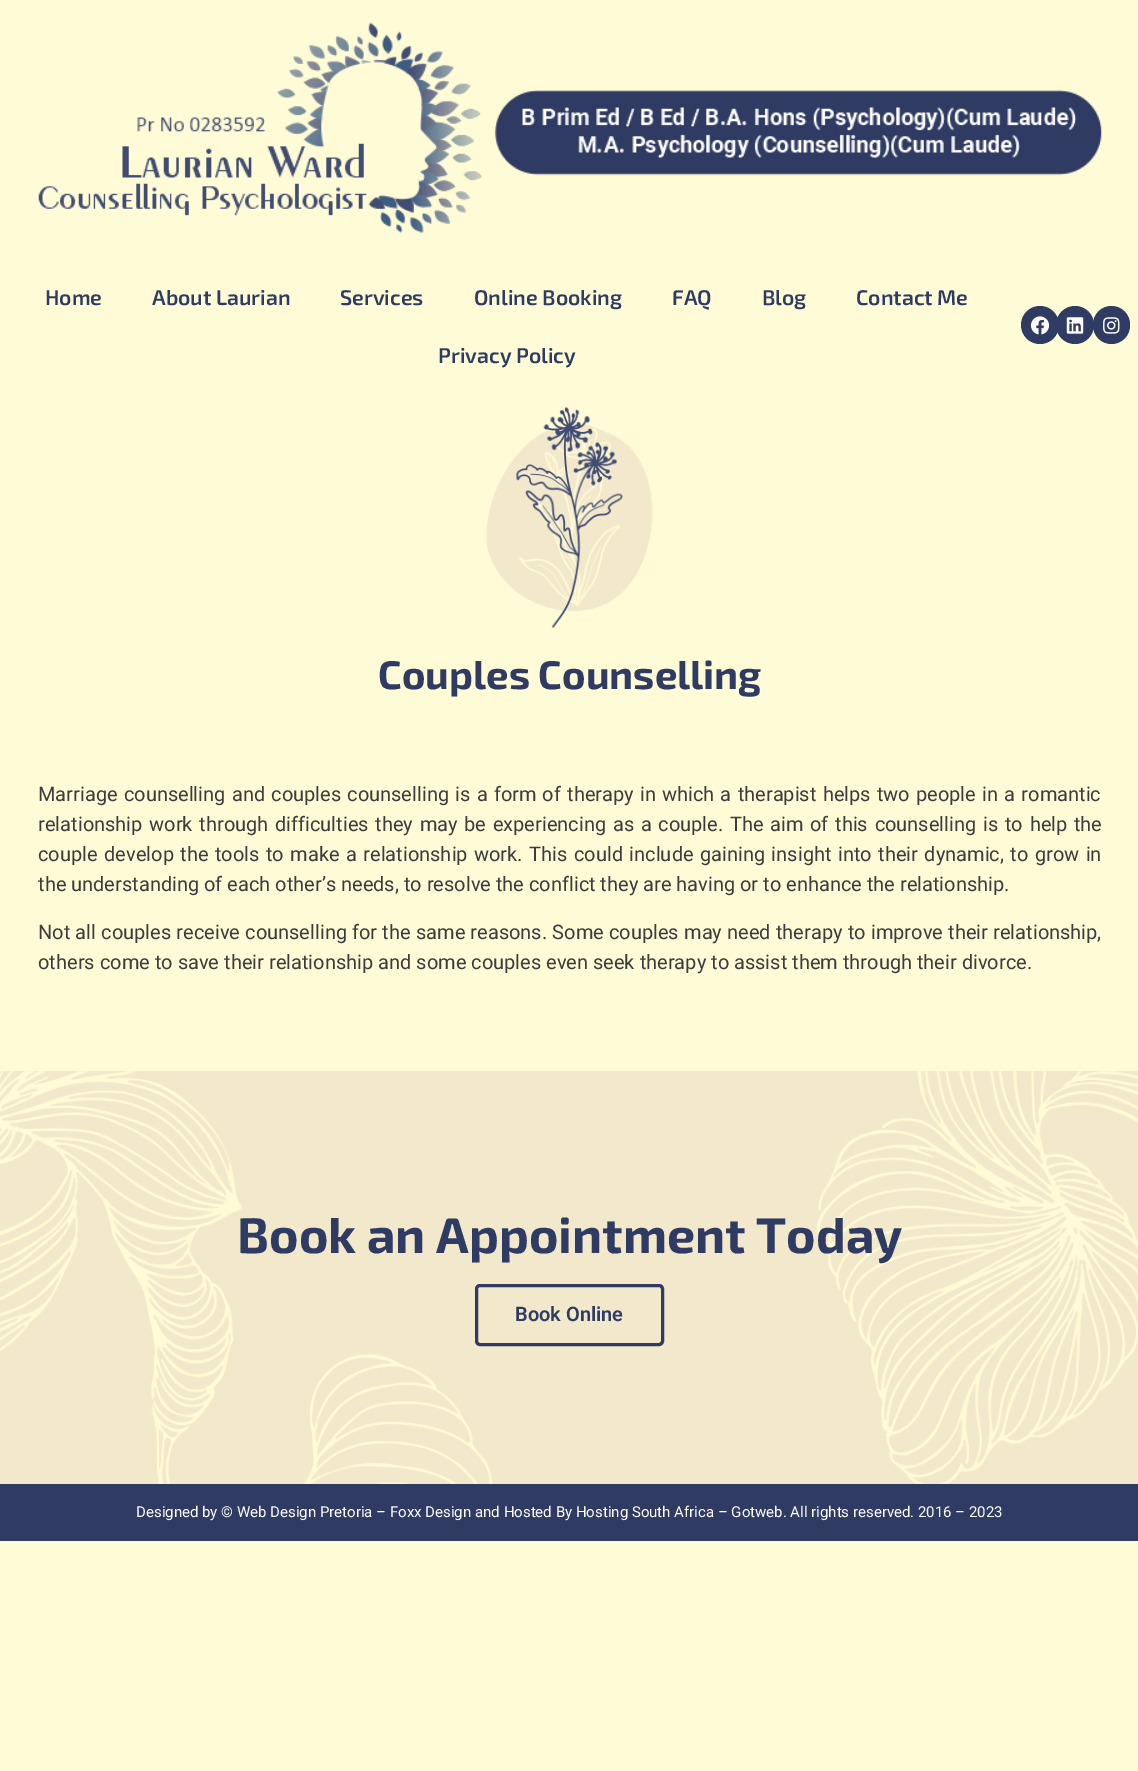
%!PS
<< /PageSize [1138 1771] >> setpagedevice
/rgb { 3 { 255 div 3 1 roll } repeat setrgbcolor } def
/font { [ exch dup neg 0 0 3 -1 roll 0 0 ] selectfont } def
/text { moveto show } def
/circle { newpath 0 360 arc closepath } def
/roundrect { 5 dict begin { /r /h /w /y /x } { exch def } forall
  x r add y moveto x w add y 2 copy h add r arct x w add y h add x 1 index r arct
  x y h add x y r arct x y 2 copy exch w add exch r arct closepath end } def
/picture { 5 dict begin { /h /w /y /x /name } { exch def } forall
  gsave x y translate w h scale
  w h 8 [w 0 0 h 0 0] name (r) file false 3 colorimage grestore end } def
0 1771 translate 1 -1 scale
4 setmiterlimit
255 251 214 rgb
0 0 1138 1771 rectfill
(img_01.rgb) 38 22 1064 211 picture
47 59 99 rgb
1040 325 19 circle fill
(img_02.rgb) 1030 316 20 19 picture
1075 325 19 circle fill
(img_03.rgb) 1066 317 18 17 picture
1093 306 37 38 18.5 roundrect fill
(img_04.rgb) 1103 317 17 17 picture
(img_05.rgb) 486 407 167 221 picture
242 232 203 rgb
0 1071 1138 413 rectfill
(img_06.rgb) 0 1071 1138 413 picture
47 59 99 rgb
3 setlinewidth
476.5 1285.5 186 59 3.5 roundrect stroke
0 1484 1138 57 rectfill
/Exo2-SemiBold 21.25 font
(Home) 45 305 text
(About Laurian) 152 305 text
(Services) 340 305 text
(Online Booking) 474 305 text
(FAQ) 672 305 text
(Blog) 762 305 text
(Contact Me) 856 305 text
(Privacy Policy) 438 363 text
/Exo2-Bold 40 font
(Couples Counselling) 378 689 text
/Roboto-Regular 20 font
60 60 60 rgb
38 801 moveto 1.25 0 32 (Marriage counselling and couples counselling is a form of therapy in which a therapist helps two people in a romantic) widthshow
38 831 moveto 1.75 0 32 (relationship work through difficulties they may be experiencing as a couple. The aim of this counselling is to help the) widthshow
38 861 moveto 1.5 0 32 (couple develop the tools to make a relationship work. This could include gaining insight into their dynamic, to grow in) widthshow
(the understanding of each other’s needs, to resolve the conflict they are having or to enhance the relationship.) 38 891 text
38 939 moveto 0.25 0 32 (Not all couples receive counselling for the same reasons. Some couples may need therapy to improve their relationship,) widthshow
(others come to save their relationship and some couples even seek therapy to assist them through their divorce.) 38 969 text
/Exo2-Bold 50 font
47 59 99 rgb
(Book an Appointment Today) 237 1253 text
/Roboto-SemiBold 20 font
(Book Online) 515 1321 text
/Roboto-Regular 15 font
255 255 255 rgb
(Designed by © Web Design Pretoria – Foxx Design and Hosted By Hosting South Africa – Gotweb. All rights reserved. 2016 – 2023) 136 1517 text
showpage
